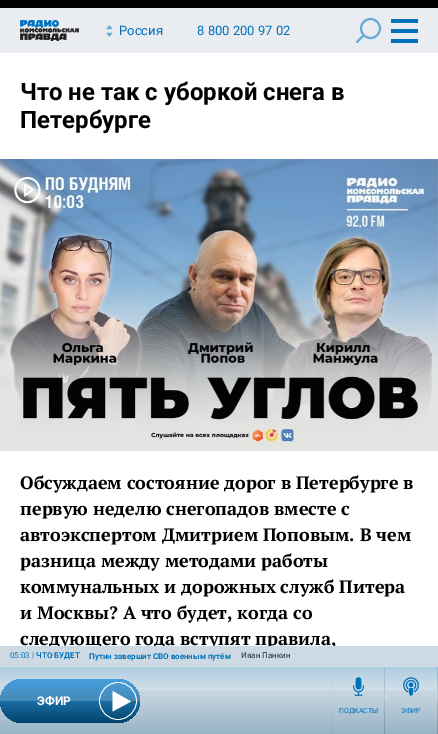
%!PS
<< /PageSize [438 734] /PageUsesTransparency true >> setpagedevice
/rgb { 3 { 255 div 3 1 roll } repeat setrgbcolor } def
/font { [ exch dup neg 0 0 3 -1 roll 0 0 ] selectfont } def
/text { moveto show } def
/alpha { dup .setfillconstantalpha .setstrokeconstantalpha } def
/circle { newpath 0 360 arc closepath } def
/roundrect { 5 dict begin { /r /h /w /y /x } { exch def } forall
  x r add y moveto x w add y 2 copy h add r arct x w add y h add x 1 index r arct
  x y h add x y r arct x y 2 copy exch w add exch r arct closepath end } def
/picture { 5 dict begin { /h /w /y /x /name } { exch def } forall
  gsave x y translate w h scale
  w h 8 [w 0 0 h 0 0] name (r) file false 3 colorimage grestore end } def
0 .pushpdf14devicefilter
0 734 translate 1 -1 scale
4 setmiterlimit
255 255 255 rgb
0 0 438 734 rectfill
0 0 0 rgb
0 0 438 8 rectfill
233 236 240 rgb
0 8 438 45 rectfill
(img_01.rgb) 20 20 59 21 picture
(img_02.rgb) 106 25 7 12 picture
102 170 214 rgb
2 setlinewidth
370.5 28.5 9.5 circle stroke
1 setlinecap
363 36 moveto -6 6 rlineto stroke
0 113 187 rgb
391 19 27 4 rectfill
391 29 27 4 rectfill
391 39 27 4 rectfill
gsave 0 667 moveto 437 0 rlineto 0 67 rlineto -437 0 rlineto closepath clip newpath
<< /ShadingType 2 /ColorSpace /DeviceRGB /Coords [219 646 219 734] /Extend [true true] /Function << /FunctionType 3 /Domain [0 1] /Functions [<< /FunctionType 2 /Domain [0 1] /C0 [0.561 0.745 0.867] /C1 [0.82 0.875 0.906] /N 1 >> << /FunctionType 2 /Domain [0 1] /C0 [0.788 0.851 0.886] /C1 [0.592 0.702 0.78] /N 1 >>] /Bounds [0.5] /Encode [0 1 0 1] >> >> shfill grestore
gsave 0 679 140 44 22 roundrect clip newpath
<< /ShadingType 2 /ColorSpace /DeviceRGB /Coords [70 679 70 723] /Extend [true true] /Function << /FunctionType 3 /Domain [0 1] /Functions [<< /FunctionType 2 /Domain [0 1] /C0 [0.275 0.624 0.867] /C1 [0.271 0.537 0.722] /N 1 >> << /FunctionType 2 /Domain [0 1] /C0 [0.102 0.427 0.643] /C1 [0.004 0.267 0.427] /N 1 >>] /Bounds [0.5] /Encode [0 1 0 1] >> >> shfill grestore
255 255 255 rgb
131 701.5 moveto -18.5 10 rlineto 0 -20.5 rlineto closepath fill
0.8 setlinewidth
0 setlinecap
118 701 18.5 circle stroke
0.2 alpha
gsave 331 667 moveto 1 0 rlineto 0 67 rlineto -1 0 rlineto closepath clip newpath
<< /ShadingType 2 /ColorSpace /DeviceRGB /Coords [332 667 332 734] /Extend [true true] /Function << /FunctionType 3 /Domain [0 1] /Functions [<< /FunctionType 2 /Domain [0 1] /C0 [0.557 0.737 0.839] /C1 [0.749 0.796 0.82] /N 1 >> << /FunctionType 2 /Domain [0 1] /C0 [0.667 0.725 0.753] /C1 [0.486 0.58 0.647] /N 1 >>] /Bounds [0.5] /Encode [0 1 0 1] >> >> shfill grestore
1 alpha
(img_03.rgb) 353 677 11 19 picture
gsave 384 667 moveto 1 0 rlineto 0 67 rlineto -1 0 rlineto closepath clip newpath
<< /ShadingType 2 /ColorSpace /DeviceRGB /Coords [385 667 385 734] /Extend [true true] /Function << /FunctionType 3 /Domain [0 1] /Functions [<< /FunctionType 2 /Domain [0 1] /C0 [0.557 0.737 0.839] /C1 [0.749 0.796 0.82] /N 1 >> << /FunctionType 2 /Domain [0 1] /C0 [0.667 0.725 0.753] /C1 [0.486 0.58 0.647] /N 1 >>] /Bounds [0.5] /Encode [0 1 0 1] >> >> shfill grestore
(img_04.rgb) 403 677 16 19 picture
gsave 437 667 moveto 1 0 rlineto 0 67 rlineto -1 0 rlineto closepath clip newpath
<< /ShadingType 2 /ColorSpace /DeviceRGB /Coords [438 667 438 734] /Extend [true true] /Function << /FunctionType 3 /Domain [0 1] /Functions [<< /FunctionType 2 /Domain [0 1] /C0 [0.557 0.737 0.839] /C1 [0.749 0.796 0.82] /N 1 >> << /FunctionType 2 /Domain [0 1] /C0 [0.667 0.725 0.753] /C1 [0.486 0.58 0.647] /N 1 >>] /Bounds [0.5] /Encode [0 1 0 1] >> >> shfill grestore
(img_05.rgb) 0 159 438 292 picture
/Roboto-Regular 13 font
0 113 187 rgb
(Россия) 119 35 text
(8 800 200 97 02) 197 35 text
/Roboto-Bold 12 font
255 255 255 rgb
(ЭФИР) 37 705 text
/Roboto-Regular 7 font
0 113 187 rgb
(ПОДКАСТЫ) 339 713 text
(ЭФИР) 401 713 text
/Roboto-Bold 24 font
0 0 0 rgb
(Что не так с уборкой снега в) 20 100 text
(Петербурге) 20 128 text
/PTSerif-Bold 18 font
(Обсуждаем состояние дорог в Петербурге в) 20 489 text
(первую неделю снегопадов вместе с) 20 515 text
(автоэкспертом Дмитрием Поповым. В чем) 20 541 text
(разница между методами работы) 20 567 text
(коммунальных и дорожных служб Питера) 20 593 text
(и Москвы? А что будет, когда со) 20 619 text
(следующего года вступят правила,) 20 645 text
205 218 227 rgb
0 646 438 21 rectfill
/Roboto-Regular 8 font
33 48 62 rgb
(Иван Панкин) 241 658 text
/Roboto-Bold 8 font
0 113 187 rgb
(Путин завершит СВО военным путём) 89 659 text
(ЧТО БУДЕТ) 36 658 text
/Roboto-Regular 8 font
(05:03 |) 10 658 text
.poppdf14devicefilter showpage
